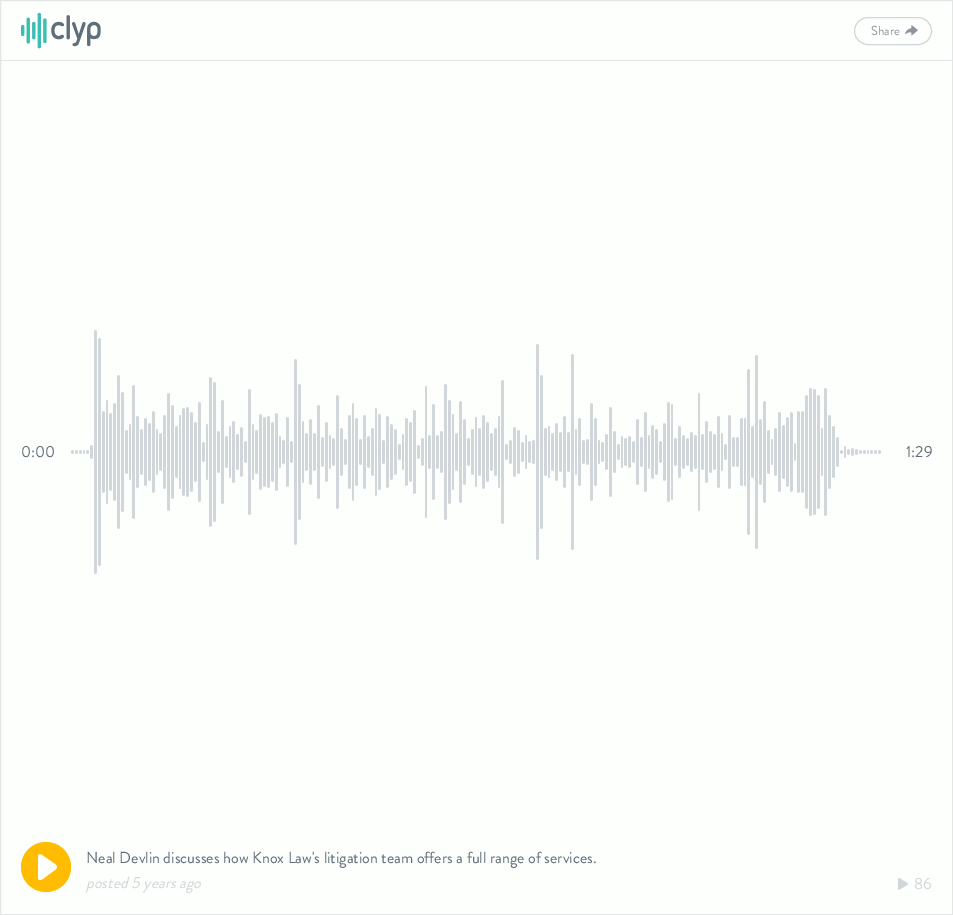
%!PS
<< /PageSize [953 915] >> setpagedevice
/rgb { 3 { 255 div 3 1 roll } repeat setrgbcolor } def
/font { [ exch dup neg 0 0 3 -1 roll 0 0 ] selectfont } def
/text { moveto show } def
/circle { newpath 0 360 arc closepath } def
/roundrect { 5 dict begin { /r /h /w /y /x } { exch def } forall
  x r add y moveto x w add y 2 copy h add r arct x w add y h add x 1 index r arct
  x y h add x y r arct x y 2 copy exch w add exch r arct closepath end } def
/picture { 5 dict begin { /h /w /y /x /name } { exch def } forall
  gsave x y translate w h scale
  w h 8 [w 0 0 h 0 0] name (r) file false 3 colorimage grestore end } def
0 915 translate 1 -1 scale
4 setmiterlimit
253 255 252 rgb
0 0 953 915 rectfill
228 229 229 rgb
0.5 0.5 952 914 rectstroke
1 60 951 1 rectfill
(img_01.rgb) 21 12 80 37 picture
209 214 218 rgb
854.5 17.5 77 27 13.5 roundrect stroke
(img_02.rgb) 905 25 13 11 picture
(img_03.rgb) 71 330 810 244 picture
255 188 0 rgb
46 867 25 circle fill
253 255 252 rgb
55.5 869.5 moveto 2 -1.5 2 -3.5 0 -5 rcurveto -13.5 -9.5 rlineto -2 -1.5 -4 -1 -4 1.5 rcurveto 0 21 rlineto 0 2.5 2 3 4 2 rcurveto closepath fill
(img_04.rgb) 898 878 10 12 picture
/BrandonGrotesque-Regular 13 font
140 149 160 rgb
(Share) 871 35 text
/BrandonGrotesque-Regular 16 font
95 109 122 rgb
(0:00) 21 457 text
(1:29) 906 457 text
(Neal Devlin discusses how Knox Law's litigation team offers a full range of services.) 86 863 text
/BrandonGrotesque-Italic 16 font
209 214 218 rgb
(posted 5 years ago) 86 888 text
/BrandonGrotesque-Regular 16 font
(86) 914 889 text
showpage
